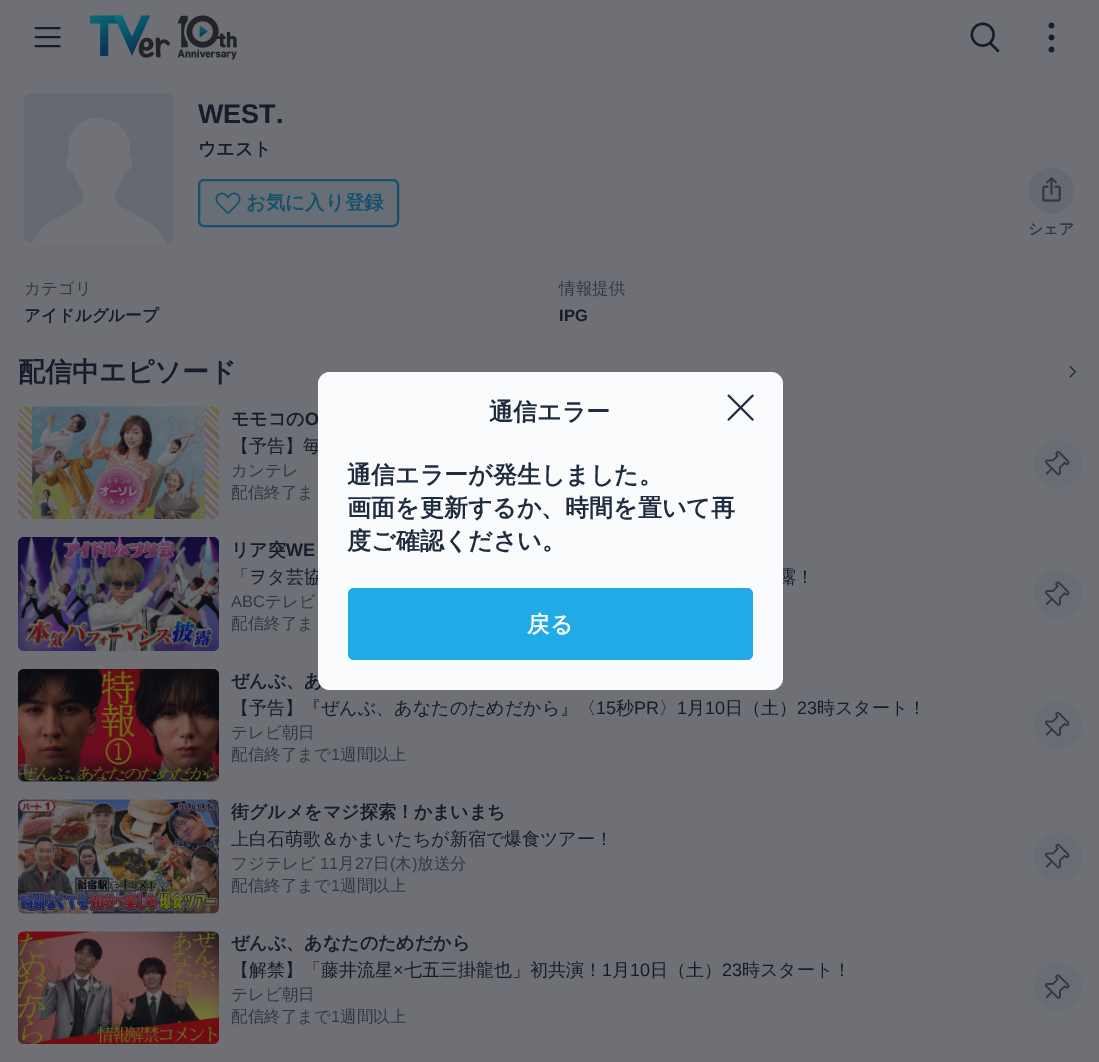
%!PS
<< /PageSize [1099 1062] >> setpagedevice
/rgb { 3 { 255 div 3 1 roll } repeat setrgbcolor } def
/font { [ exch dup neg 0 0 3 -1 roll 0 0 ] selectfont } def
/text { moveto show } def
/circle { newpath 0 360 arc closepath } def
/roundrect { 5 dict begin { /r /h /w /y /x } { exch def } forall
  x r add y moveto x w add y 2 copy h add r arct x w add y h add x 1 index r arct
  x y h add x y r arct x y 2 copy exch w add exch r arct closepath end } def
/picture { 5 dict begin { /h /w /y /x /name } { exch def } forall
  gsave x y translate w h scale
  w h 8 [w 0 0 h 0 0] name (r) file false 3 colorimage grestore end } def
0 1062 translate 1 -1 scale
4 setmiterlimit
110 112 118 rgb
0 0 1099 1062 rectfill
(img_01.rgb) 34 27 27 21 picture
(img_02.rgb) 90 15 147 45 picture
(img_03.rgb) 970 22 30 31 picture
(img_04.rgb) 1048 22 7 31 picture
(img_05.rgb) 24 93 150 150 picture
103 110 117 rgb
199 180 199 46 5 roundrect gsave fill grestore
23 80 109 rgb
2 setlinewidth
stroke
(img_06.rgb) 215 192 26 22 picture
(img_07.rgb) 1028 167 47 47 picture
(img_08.rgb) 1069 366 7 12 picture
(img_09.rgb) 18 406 201 113 picture
(img_10.rgb) 18 406 201 113 picture
104 108 115 rgb
1058 464 24 circle fill
(img_11.rgb) 1045 451 25 25 picture
(img_12.rgb) 18 537 201 114 picture
(img_13.rgb) 18 537 201 114 picture
1058 594 24 circle fill
(img_14.rgb) 1045 581 25 25 picture
(img_15.rgb) 18 669 201 113 picture
(img_16.rgb) 18 669 201 113 picture
1058 725 24 circle fill
(img_11.rgb) 1045 712 25 25 picture
(img_17.rgb) 18 799 201 115 picture
(img_18.rgb) 18 799 201 115 picture
1058 857 24 circle fill
(img_11.rgb) 1045 844 25 25 picture
(img_19.rgb) 18 931 201 113 picture
(img_20.rgb) 18 931 201 113 picture
1058 987 24 circle fill
(img_14.rgb) 1045 974 25 25 picture
/LiberationSans-Bold 27 font
22 29 42 rgb
(WEST.) 198 123 text
/WenQuanYiZenHei-Bold 18 font
(ウエスト) 198 155 text
/WenQuanYiZenHei-Bold 19.5 font
23 80 109 rgb
(お気に入り登録) 246 209 text
/WenQuanYiZenHei-Bold 15 font
49 55 67 rgb
(シェア) 1028 234 text
/WenQuanYiZenHei-Medium 16.5 font
(カテゴリ) 24 294 text
/WenQuanYiZenHei-Bold 16.5 font
22 29 42 rgb
(アイドルグループ) 24 321 text
/WenQuanYiZenHei-Medium 16.5 font
49 55 67 rgb
(情報提供) 559 294 text
/LiberationSans-Bold 16.5 font
22 29 42 rgb
(IPG) 559 321 text
/WenQuanYiZenHei-Bold 27 font
(配信中エピソード) 18 381 text
/WenQuanYiZenHei-Bold 18 font
(モモコの) 231 425 text
/LiberationSans-Bold 18 font
(O) 305 425 text
/WenQuanYiZenHei-Medium 18 font
(【予告】毎) 231 452 text
/WenQuanYiZenHei-Medium 16.5 font
49 55 67 rgb
(カンテレ) 231 476 text
(配信終了ま) 231 498 text
/WenQuanYiZenHei-Bold 18 font
22 29 42 rgb
(リア突) 231 556 text
/LiberationSans-Bold 18 font
(WE) 286 556 text
/WenQuanYiZenHei-Medium 18 font
(「ヲタ芸協) 231 583 text
(露！) 778 583 text
/LiberationSans-Regular 16.5 font
49 55 67 rgb
(ABC) 231 607 text
/WenQuanYiZenHei-Medium 16.5 font
(テレビ) 265 607 text
(配信終了ま) 231 629 text
/WenQuanYiZenHei-Bold 18 font
22 29 42 rgb
(ぜんぶ、あ) 231 687 text
/WenQuanYiZenHei-Medium 18 font
(【予告】『ぜんぶ、あなたのためだから』〈) 231 714 text
/LiberationSans-Regular 18 font
(15) 596 714 text
/WenQuanYiZenHei-Medium 18 font
(秒) 616 714 text
/LiberationSans-Regular 18 font
(PR) 634 714 text
/WenQuanYiZenHei-Medium 18 font
(〉) 659 714 text
/LiberationSans-Regular 18 font
(1) 677 714 text
/WenQuanYiZenHei-Medium 18 font
(月) 687 714 text
/LiberationSans-Regular 18 font
(10) 705 714 text
/WenQuanYiZenHei-Medium 18 font
(日（土）) 725 714 text
/LiberationSans-Regular 18 font
(23) 797 714 text
/WenQuanYiZenHei-Medium 18 font
(時スタート！) 817 714 text
/WenQuanYiZenHei-Medium 16.5 font
49 55 67 rgb
(テレビ朝日) 231 738 text
(配信終了まで) 231 760 text
/LiberationSans-Regular 16.5 font
(1) 331 760 text
/WenQuanYiZenHei-Medium 16.5 font
(週間以上) 340 760 text
/WenQuanYiZenHei-Bold 18 font
22 29 42 rgb
(街グルメをマジ探索！かまいまち) 231 818 text
/WenQuanYiZenHei-Medium 18 font
(上白石萌歌＆かまいたちが新宿で爆食ツアー！) 231 845 text
/WenQuanYiZenHei-Medium 16.5 font
49 55 67 rgb
(フジテレビ) 231 869 text
/LiberationSans-Regular 16.5 font
(11) 320 869 text
/WenQuanYiZenHei-Medium 16.5 font
(月) 338 869 text
/LiberationSans-Regular 16.5 font
(27) 355 869 text
/WenQuanYiZenHei-Medium 16.5 font
(日) 373 869 text
/LiberationSans-Regular 16.5 font
(\() 390 869 text
/WenQuanYiZenHei-Medium 16.5 font
(木) 395 869 text
/LiberationSans-Regular 16.5 font
(\)) 412 869 text
/WenQuanYiZenHei-Medium 16.5 font
(放送分) 417 869 text
(配信終了まで) 231 891 text
/LiberationSans-Regular 16.5 font
(1) 331 891 text
/WenQuanYiZenHei-Medium 16.5 font
(週間以上) 340 891 text
/WenQuanYiZenHei-Bold 18 font
22 29 42 rgb
(ぜんぶ、あなたのためだから) 231 949 text
/WenQuanYiZenHei-Medium 18 font
(【解禁】「藤井流星) 231 976 text
/LiberationSans-Regular 18 font
(×) 393 976 text
/WenQuanYiZenHei-Medium 18 font
(七五三掛龍也」初共演！) 404 976 text
/LiberationSans-Regular 18 font
(1) 602 976 text
/WenQuanYiZenHei-Medium 18 font
(月) 612 976 text
/LiberationSans-Regular 18 font
(10) 630 976 text
/WenQuanYiZenHei-Medium 18 font
(日（土）) 650 976 text
/LiberationSans-Regular 18 font
(23) 722 976 text
/WenQuanYiZenHei-Medium 18 font
(時スタート！) 742 976 text
/WenQuanYiZenHei-Medium 16.5 font
49 55 67 rgb
(テレビ朝日) 231 1000 text
(配信終了まで) 231 1022 text
/LiberationSans-Regular 16.5 font
(1) 331 1022 text
/WenQuanYiZenHei-Medium 16.5 font
(週間以上) 340 1022 text
250 251 252 rgb
318 372 465 318 12 roundrect fill
/WenQuanYiZenHei-Bold 24 font
31 43 62 rgb
(通信エラー) 489 420 text
(img_21.rgb) 727 394 27 27 picture
(通信エラーが発生しました。) 347 483 text
(画面を更新するか、時間を置いて再) 347 516 text
(度ご確認ください。) 347 549 text
33 171 230 rgb
348 588 405 72 6 roundrect fill
/WenQuanYiZenHei-Bold 22.5 font
255 255 255 rgb
(戻る) 527 632 text
showpage
